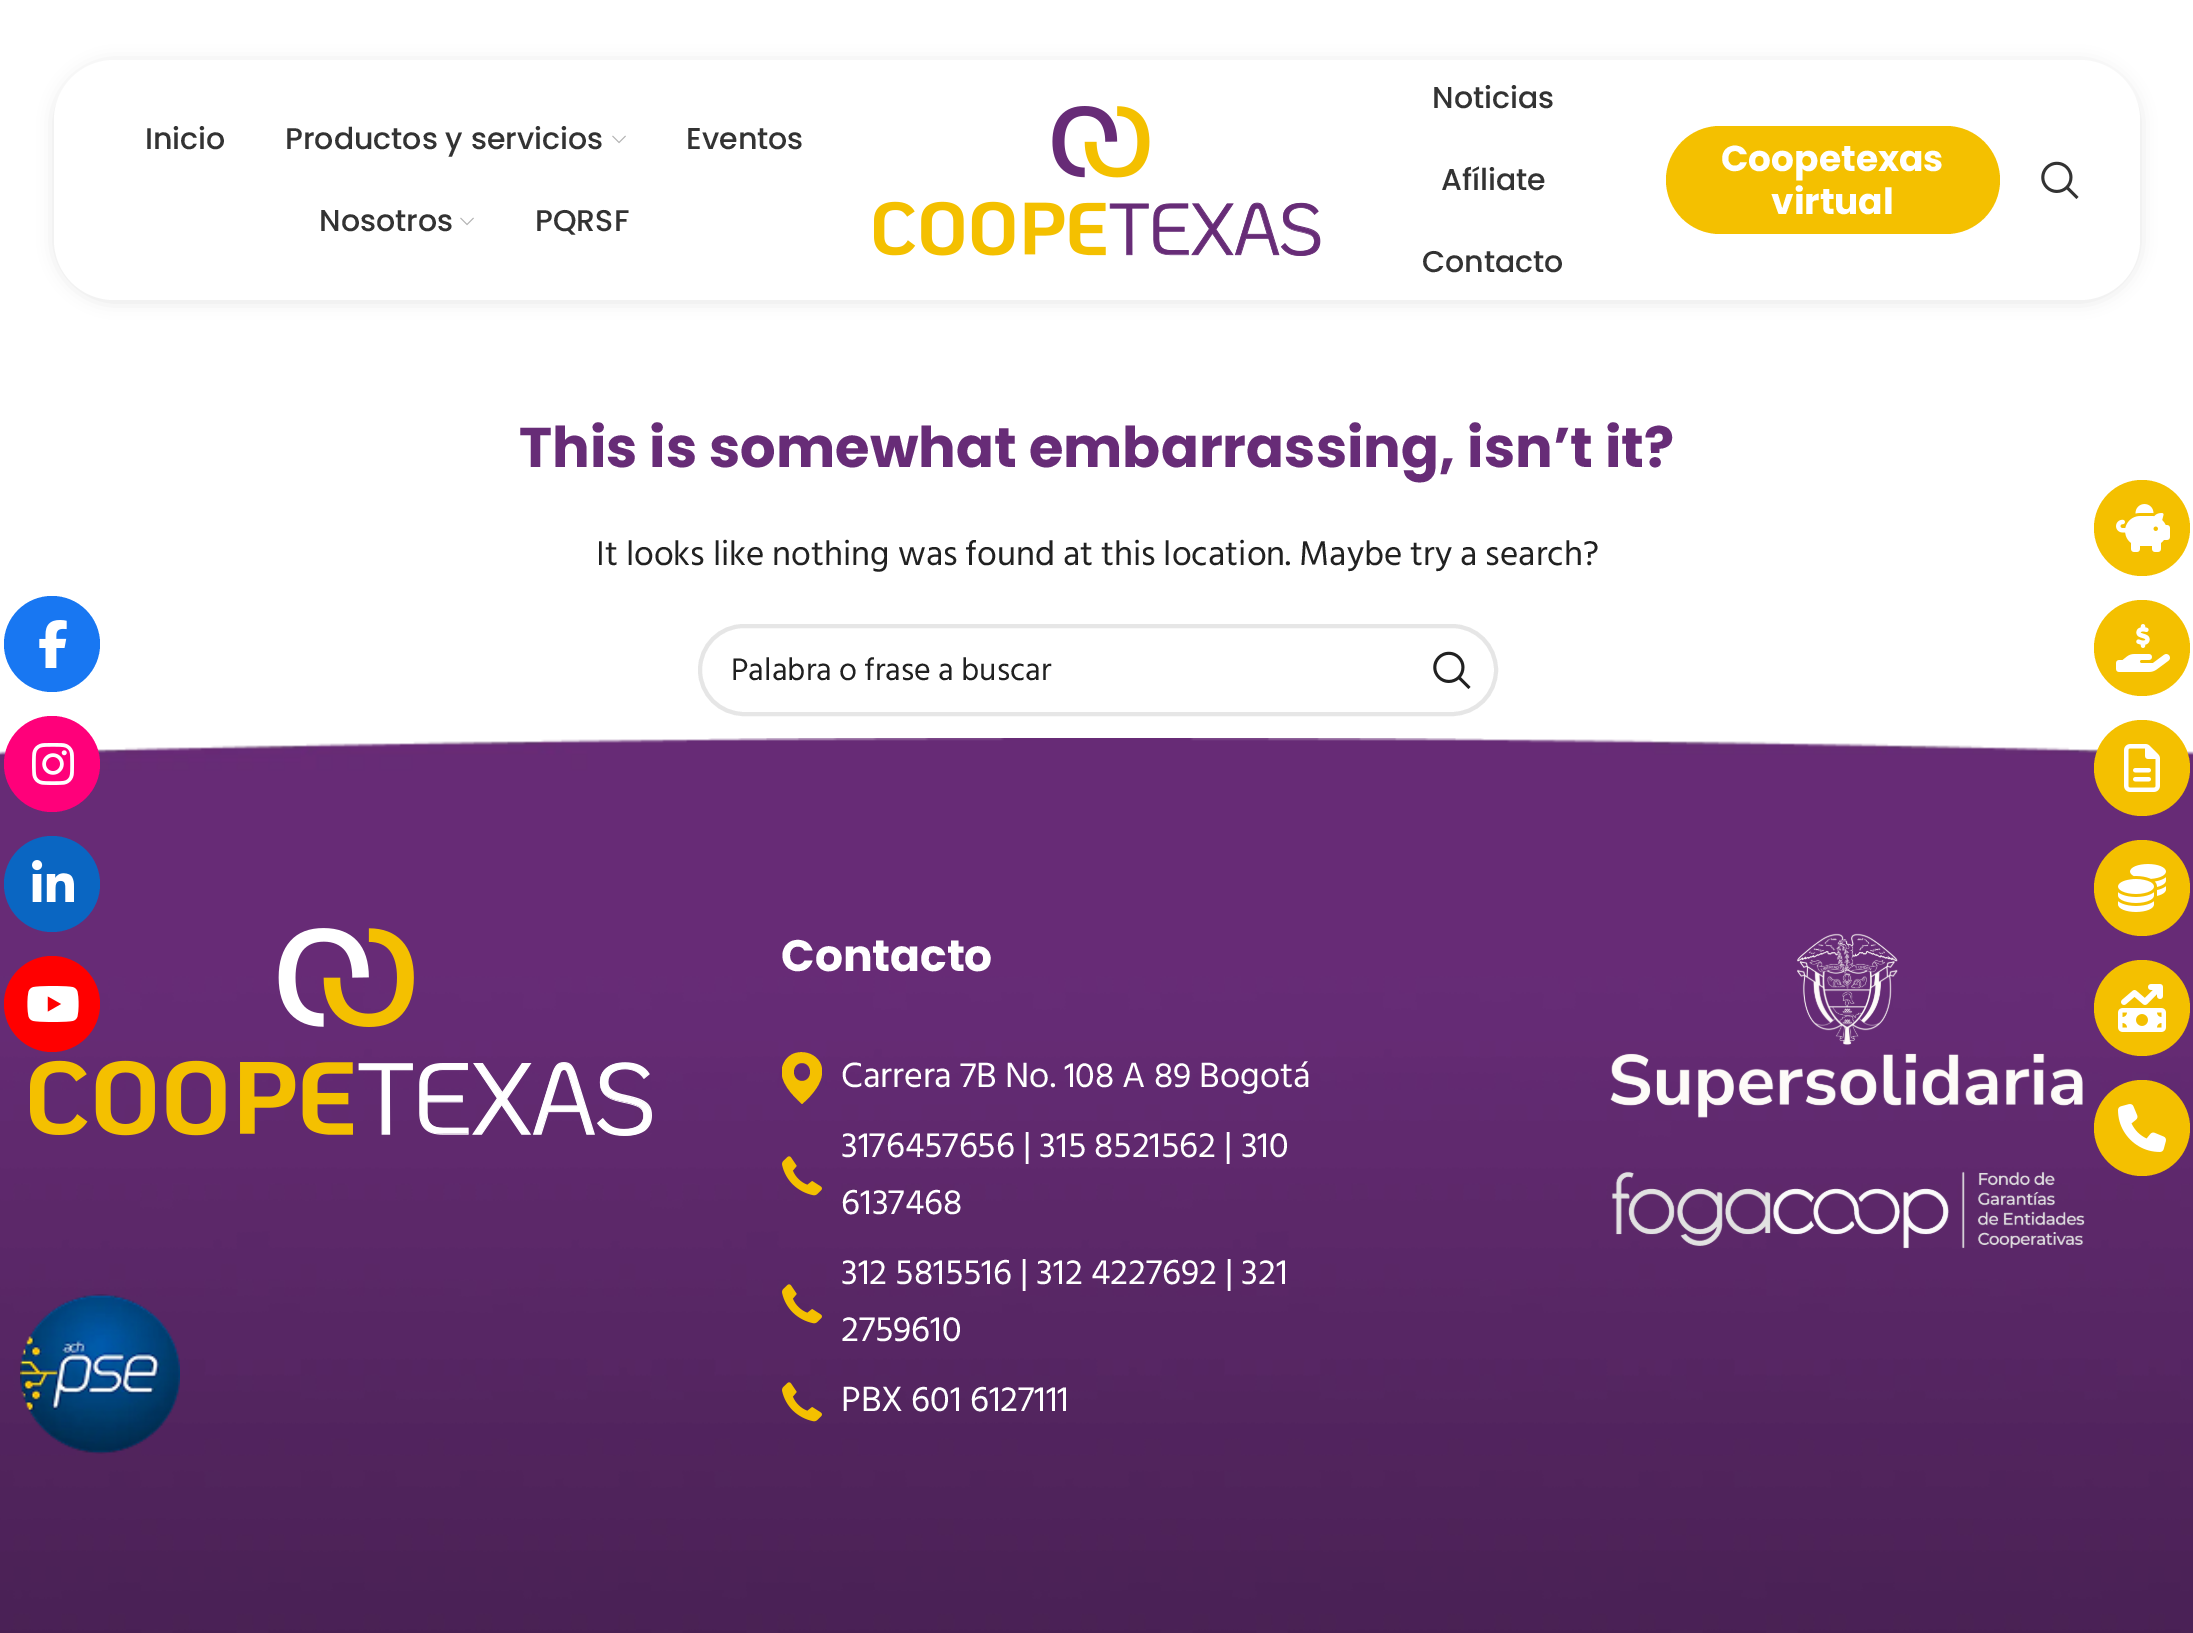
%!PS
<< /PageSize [2193 1633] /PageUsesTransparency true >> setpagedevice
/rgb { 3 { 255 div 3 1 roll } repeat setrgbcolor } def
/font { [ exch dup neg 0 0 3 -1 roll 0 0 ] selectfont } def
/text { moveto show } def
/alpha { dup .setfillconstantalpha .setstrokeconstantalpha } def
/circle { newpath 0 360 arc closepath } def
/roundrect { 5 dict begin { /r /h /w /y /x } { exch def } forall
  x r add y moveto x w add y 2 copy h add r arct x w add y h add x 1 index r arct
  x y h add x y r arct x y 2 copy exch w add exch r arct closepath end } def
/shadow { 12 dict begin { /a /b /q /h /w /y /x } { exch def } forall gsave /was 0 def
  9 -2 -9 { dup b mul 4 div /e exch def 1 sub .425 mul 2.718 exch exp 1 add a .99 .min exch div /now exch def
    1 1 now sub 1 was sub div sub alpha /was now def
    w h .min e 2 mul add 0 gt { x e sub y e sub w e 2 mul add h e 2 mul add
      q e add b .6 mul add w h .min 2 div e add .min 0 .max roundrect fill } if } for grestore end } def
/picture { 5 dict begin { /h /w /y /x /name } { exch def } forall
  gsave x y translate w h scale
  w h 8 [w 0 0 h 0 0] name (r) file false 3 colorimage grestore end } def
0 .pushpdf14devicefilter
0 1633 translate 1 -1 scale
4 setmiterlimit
255 255 255 rgb
0 0 2193 1633 rectfill
24 119 242 rgb
52 644 48 circle fill
(img_01.rgb) 39 620 28 48 picture
(img_09.rgb) 0 738 2193 895 picture
255 0 122 rgb
52 764 48 circle fill
(img_02.rgb) 32 743 42 42 picture
(img_10.rgb) 30 928 622 208 picture
10 102 194 rgb
52 884 48 circle fill
(img_03.rgb) 32 860 42 42 picture
255 0 0 rgb
52 1004 48 circle fill
(img_04.rgb) 27 986 52 36 picture
0 0 0 rgb
54 62 2086 240 60 8 0.1 shadow
255 255 255 rgb
54 60 2086 240 60 roundrect fill
(img_05.rgb) 612 135 14 9 picture
(img_05.rgb) 460 217 14 9 picture
(img_06.rgb) 874 106 447 150 picture
244 192 0 rgb
1666 126 334 108 54 roundrect fill
(img_07.rgb) 2041 161 38 38 picture
230 230 230 rgb
4 setlinewidth
700 626 796 88 44 roundrect stroke
(img_08.rgb) 1433 651 38 38 picture
gsave
782 1052 40 52 rectclip
244 192 0 rgb
802 1104 moveto -10 -9 -23 -23 -20 -36 rcurveto 8 -34 72 -9 20 36 rcurveto closepath 802 1063 moveto -11 0 -11 18 0 18 rcurveto 11 0 11 -18 0 -18 rcurveto closepath fill
grestore
(img_11.rgb) 782 1156 40 40 picture
(img_12.rgb) 782 1284 40 40 picture
(img_13.rgb) 782 1382 40 40 picture
(img_14.rgb) 1610 933 475 316 picture
244 192 0 rgb
2142 528 48 circle fill
(img_15.rgb) 2116 504 54 48 picture
2142 648 48 circle fill
(img_16.rgb) 2116 624 54 48 picture
2142 768 48 circle fill
(img_17.rgb) 2124 744 36 48 picture
2142 888 48 circle fill
(img_18.rgb) 2118 864 48 48 picture
2142 1008 48 circle fill
(img_19.rgb) 2118 984 48 48 picture
2142 1128 48 circle fill
(img_20.rgb) 2118 1104 48 48 picture
(img_21.rgb) 20 1294 160 160 picture
/Poppins-Medium 30 font
51 51 51 rgb
(Inicio) 145 149 text
(Productos y servicios) 285 149 text
(Eventos) 686 149 text
(Nosotros) 319 231 text
(PQRSF) 535 231 text
(Noticias) 1432 108 text
(Afíliate) 1441 190 text
(Contacto) 1422 272 text
/Poppins-Bold 36 font
255 255 255 rgb
(Coopetexas) 1721 171 text
(virtual) 1771 214 text
/Poppins-Bold 56 font
103 44 119 rgb
(This is somewhat embarrassing, isn’t it?) 519 467 text
/HindSiliguri-Regular 35.2 font
33 33 33 rgb
(It looks like nothing was found at this location. Maybe try a search?) 596 565 text
/HindSiliguri-Regular 32 font
(Palabra o frase a buscar) 731 680 text
/Poppins-Bold 44 font
255 255 255 rgb
(Contacto) 781 971 text
/HindSiliguri-Regular 36 font
(Carrera 7B No. 108 A 89 Bogotá) 841 1087 text
(3176457656 | 315 8521562 | 310) 841 1157 text
(6137468) 841 1214 text
(312 5815516 | 312 4227692 | 321) 841 1284 text
(2759610) 841 1341 text
(PBX 601 6127111) 841 1411 text
.poppdf14devicefilter showpage
